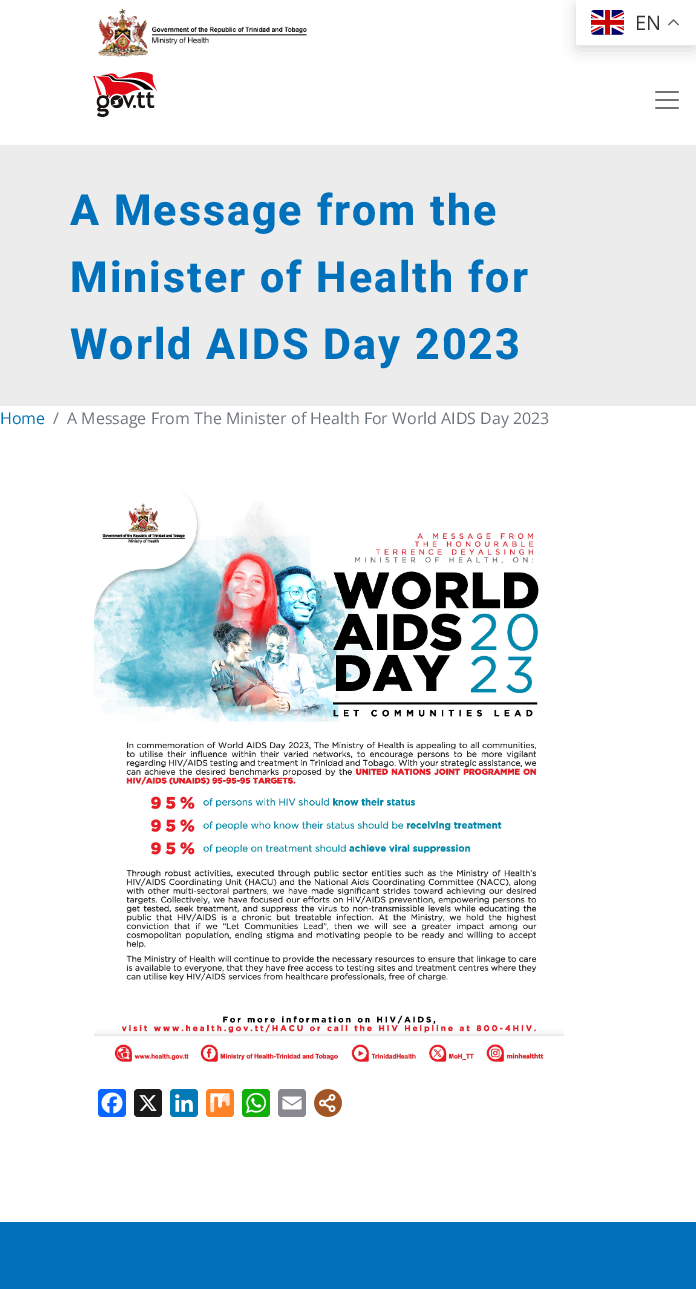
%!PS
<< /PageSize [696 1289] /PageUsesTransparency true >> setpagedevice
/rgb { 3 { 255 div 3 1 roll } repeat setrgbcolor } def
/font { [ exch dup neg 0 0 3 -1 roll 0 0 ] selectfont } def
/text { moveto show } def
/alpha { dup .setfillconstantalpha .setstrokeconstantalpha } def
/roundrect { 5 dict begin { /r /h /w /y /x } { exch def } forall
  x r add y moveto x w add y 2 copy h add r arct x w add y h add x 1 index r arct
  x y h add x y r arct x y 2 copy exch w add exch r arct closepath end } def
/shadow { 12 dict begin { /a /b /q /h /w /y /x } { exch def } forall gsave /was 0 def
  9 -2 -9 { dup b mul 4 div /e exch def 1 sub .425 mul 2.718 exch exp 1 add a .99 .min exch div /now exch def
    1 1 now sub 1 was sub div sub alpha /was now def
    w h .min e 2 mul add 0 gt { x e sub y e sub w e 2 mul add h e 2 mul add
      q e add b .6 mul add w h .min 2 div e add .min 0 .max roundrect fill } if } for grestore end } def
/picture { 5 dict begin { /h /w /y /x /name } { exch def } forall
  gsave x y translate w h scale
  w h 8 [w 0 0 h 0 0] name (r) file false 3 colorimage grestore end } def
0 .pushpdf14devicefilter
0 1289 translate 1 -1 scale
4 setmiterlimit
255 255 255 rgb
0 0 696 1289 rectfill
(img_01.rgb) 98 8 209 49 picture
(img_02.rgb) 93 72 64 45 picture
0 0 0 rgb
576 5 120 45 2 7.5 0.15 shadow
255 255 255 rgb
576 0 120 45 2 roundrect fill
(img_03.rgb) 591 10 33 25 picture
(img_04.rgb) 668 19 11 7 picture
(img_05.rgb) 655 91 24 18 picture
236 236 236 rgb
0 145 696 261 rectfill
(img_06.rgb) 94 489 470 575 picture
8 102 255 rgb
98 1089 28 28 4 roundrect fill
(img_07.rgb) 101 1092 22 22 picture
26 26 26 rgb
134 1089 28 28 4 roundrect fill
(img_08.rgb) 139 1095 18 16 picture
0 123 181 rgb
170 1089 28 28 4 roundrect fill
(img_09.rgb) 175 1094 18 18 picture
255 130 38 rgb
206 1089 28 28 4 roundrect fill
(img_10.rgb) 210 1093 20 20 picture
18 175 10 rgb
242 1089 28 28 4 roundrect fill
(img_11.rgb) 246 1092 21 22 picture
136 137 144 rgb
278 1089 28 28 4 roundrect fill
(img_12.rgb) 282 1096 20 14 picture
(img_13.rgb) 314 1089 28 28 picture
0 113 186 rgb
0 1222 696 67 rectfill
/OpenSans-Regular 20 font
51 51 51 rgb
(EN) 635 30 text
/Roboto-ExtraBold 43 font
0 113 186 rgb
70 225 moveto 2 0 (A Message from the) ashow
70 292 moveto 2 0 (Minister of Health for) ashow
70 359 moveto 2 0 (World AIDS Day 2023) ashow
/OpenSans-Regular 16 font
0 113 179 rgb
(Home) 0 424 text
108 117 125 rgb
(/) 53 424 text
(A Message From The Minister of Health For World AIDS Day 2023) 67 424 text
.poppdf14devicefilter showpage
